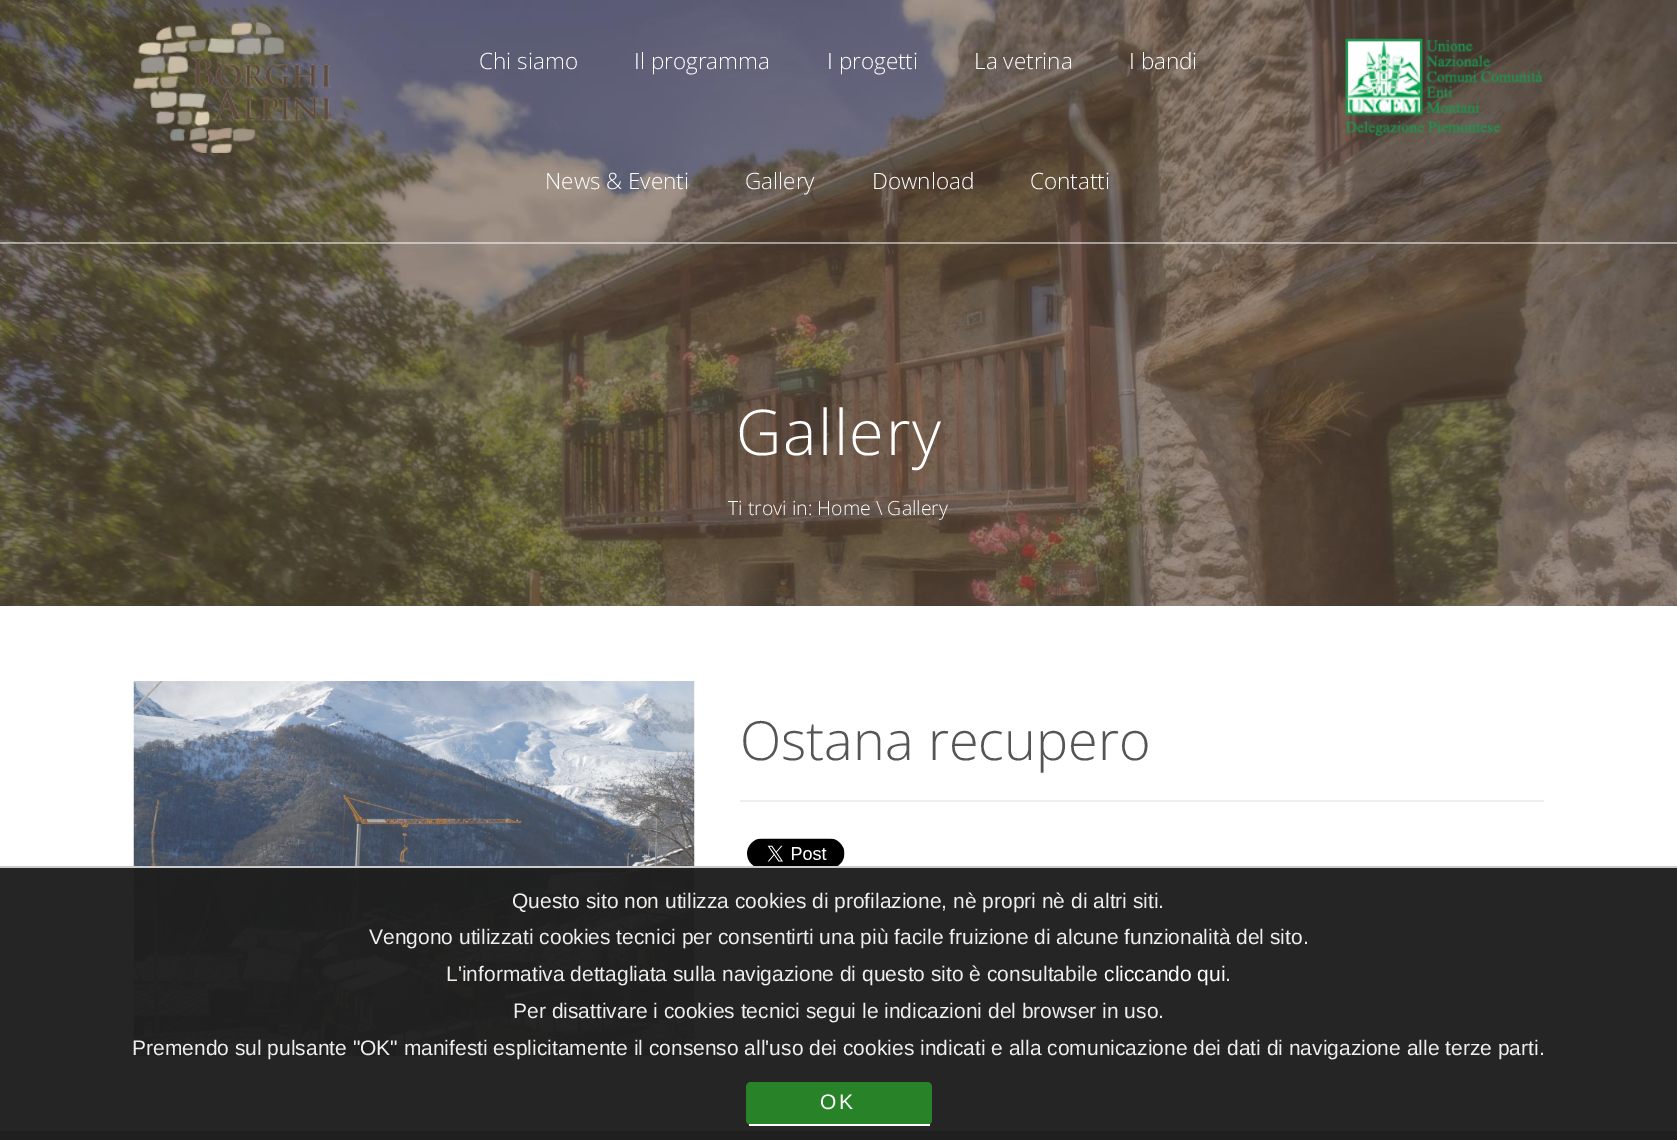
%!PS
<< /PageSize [1677 1140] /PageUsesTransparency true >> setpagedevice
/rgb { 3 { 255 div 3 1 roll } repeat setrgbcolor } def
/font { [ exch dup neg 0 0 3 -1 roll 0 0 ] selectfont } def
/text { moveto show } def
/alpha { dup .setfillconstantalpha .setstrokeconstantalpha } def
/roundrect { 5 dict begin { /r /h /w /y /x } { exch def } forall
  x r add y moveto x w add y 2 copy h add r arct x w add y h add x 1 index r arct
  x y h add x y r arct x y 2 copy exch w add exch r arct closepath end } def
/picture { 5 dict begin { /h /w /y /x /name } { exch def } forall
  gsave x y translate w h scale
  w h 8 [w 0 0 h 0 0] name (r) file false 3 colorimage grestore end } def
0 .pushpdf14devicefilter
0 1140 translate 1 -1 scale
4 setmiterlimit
255 255 255 rgb
0 0 1677 1140 rectfill
(img_03.rgb) 0 0 1677 606 picture
0.5 alpha
0 242 1677 2 rectfill
1 alpha
(img_01.rgb) 133 22 199 131 picture
(img_02.rgb) 1345 38 198 98 picture
(img_04.rgb) 133 681 562 375 picture
139 120 106 rgb
134 1055 561 1 rectfill
238 238 238 rgb
740 800 804 2 rectfill
(img_05.rgb) 747 838 98 31 picture
2 setlinewidth
741 907 185 61 2 roundrect stroke
96 77 63 rgb
0 1131 1677 9 rectfill
0.97 alpha
30 30 30 rgb
0 868 1677 272 rectfill
1 alpha
204 204 204 rgb
0 866 1677 2 rectfill
40 130 40 rgb
746 1082 186 43 5 roundrect fill
255 255 255 rgb
749 1124 181 2 rectfill
/OpenSans-Light 22.5 font
(Chi siamo) 479 69 text
(Il programma) 634 69 text
(I progetti) 827 69 text
(La vetrina) 974 69 text
(I bandi) 1129 69 text
(News & Eventi) 545 189 text
(Gallery) 745 189 text
(Download) 872 189 text
(Contatti) 1030 189 text
/OpenSans-Light 63 font
736 455 moveto 1.5 0 (Gallery) ashow
/OpenSans-Light 19.5 font
(Ti trovi in: Home \\ Gallery) 728 515 text
/OpenSans-Light 54 font
85 85 85 rgb
(Ostana recupero) 740 760 text
/LiberationSans-Regular 21 font
238 238 238 rgb
(Questo sito non utilizza cookies di profilazione, nè propri nè di altri siti.) 512 908 text
(Vengono utilizzati cookies tecnici per consentirti una più facile fruizione di alcune funzionalità del sito.) 369 944 text
(L'informativa dettagliata sulla navigazione di questo sito è consultabile) 446 981 text
255 255 255 rgb
(cliccando qui) 1104 981 text
238 238 238 rgb
(.) 1225 981 text
(Per disattivare i cookies tecnici segui le indicazioni del browser in uso.) 513 1018 text
(Premendo sul pulsante "OK" manifesti esplicitamente il consenso all'uso dei cookies indicati e alla comunicazione dei dati di navigazione alle terze parti.) 132 1055 text
255 255 255 rgb
820 1109 moveto 3 0 (OK) ashow
.poppdf14devicefilter showpage
